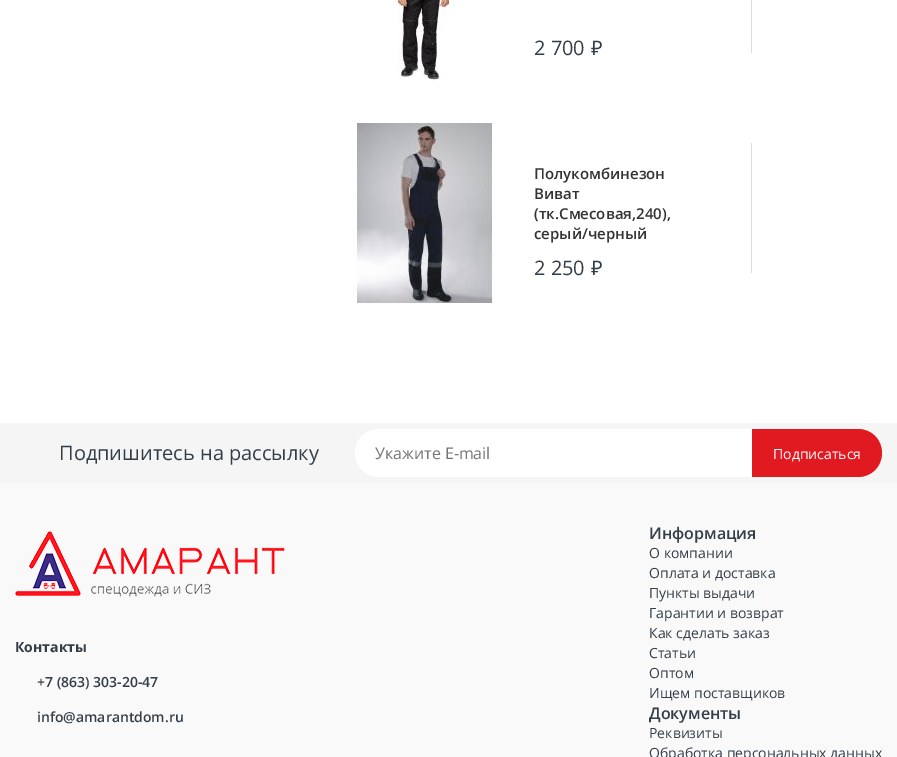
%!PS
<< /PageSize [897 757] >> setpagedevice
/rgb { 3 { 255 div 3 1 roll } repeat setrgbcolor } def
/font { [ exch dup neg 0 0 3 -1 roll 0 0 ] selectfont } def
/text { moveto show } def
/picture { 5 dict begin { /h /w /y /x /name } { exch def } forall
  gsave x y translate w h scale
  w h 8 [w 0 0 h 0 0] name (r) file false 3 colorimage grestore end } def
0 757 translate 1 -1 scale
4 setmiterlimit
255 255 255 rgb
0 0 897 757 rectfill
(img_01.rgb) 396 0 66 81 picture
221 221 221 rgb
751 0 1 53 rectfill
(img_02.rgb) 353 123 140 180 picture
751 143 1 130 rectfill
249 249 249 rgb
0 483 897 274 rectfill
245 245 245 rgb
0 423 897 60 rectfill
255 255 255 rgb
379 429 moveto 373 0 rlineto 0 48 rlineto -373 0 rlineto -13.5 0 -24 -10.5 -24 -24 rcurveto 0 -13.5 10.5 -24 24 -24 rcurveto closepath fill
225 26 34 rgb
752 429 moveto 106 0 rlineto 13.5 0 24 10.5 24 24 rcurveto 0 13.5 -10.5 24 -24 24 rcurveto -106 0 rlineto closepath fill
(img_03.rgb) 15 531 270 66 picture
/OpenSans-Regular 20 font
51 62 72 rgb
(2 700) 534 55 text
/NotoSans-Regular 20 font
(₽) 591 55 text
/OpenSans-SemiBold 15 font
51 51 51 rgb
(Полукомбинезон) 534 179 text
(Виват) 534 199 text
(\(тк.Смесовая,240\),) 534 219 text
(серый/черный) 534 239 text
/OpenSans-Regular 20 font
51 62 72 rgb
(2 250) 534 275 text
/NotoSans-Regular 20 font
(₽) 591 275 text
/OpenSans-Regular 20 font
(Подпишитесь на рассылку) 59 460 text
/OpenSans-Regular 16 font
117 117 117 rgb
(Укажите E-mail) 375 459 text
/OpenSans-Regular 14 font
255 255 255 rgb
(Подписаться) 773 459 text
/OpenSans-Bold 14 font
51 62 72 rgb
(Контакты) 15 652 text
/OpenSans-SemiBold 14 font
(+7 \(863\) 303-20-47) 37 687 text
(info@amarantdom.ru) 37 722 text
/OpenSans-SemiBold 16 font
(Информация) 649 539 text
/OpenSans-Regular 14 font
(О компании) 649 558 text
(Оплата и доставка) 649 578 text
(Пункты выдачи) 649 598 text
(Гарантии и возврат) 649 618 text
(Как сделать заказ) 649 638 text
(Статьи) 649 658 text
(Оптом) 649 678 text
(Ищем поставщиков) 649 698 text
/OpenSans-SemiBold 16 font
(Документы) 649 719 text
/OpenSans-Regular 14 font
(Реквизиты) 649 738 text
(Обработка персональных данных) 649 758 text
showpage
